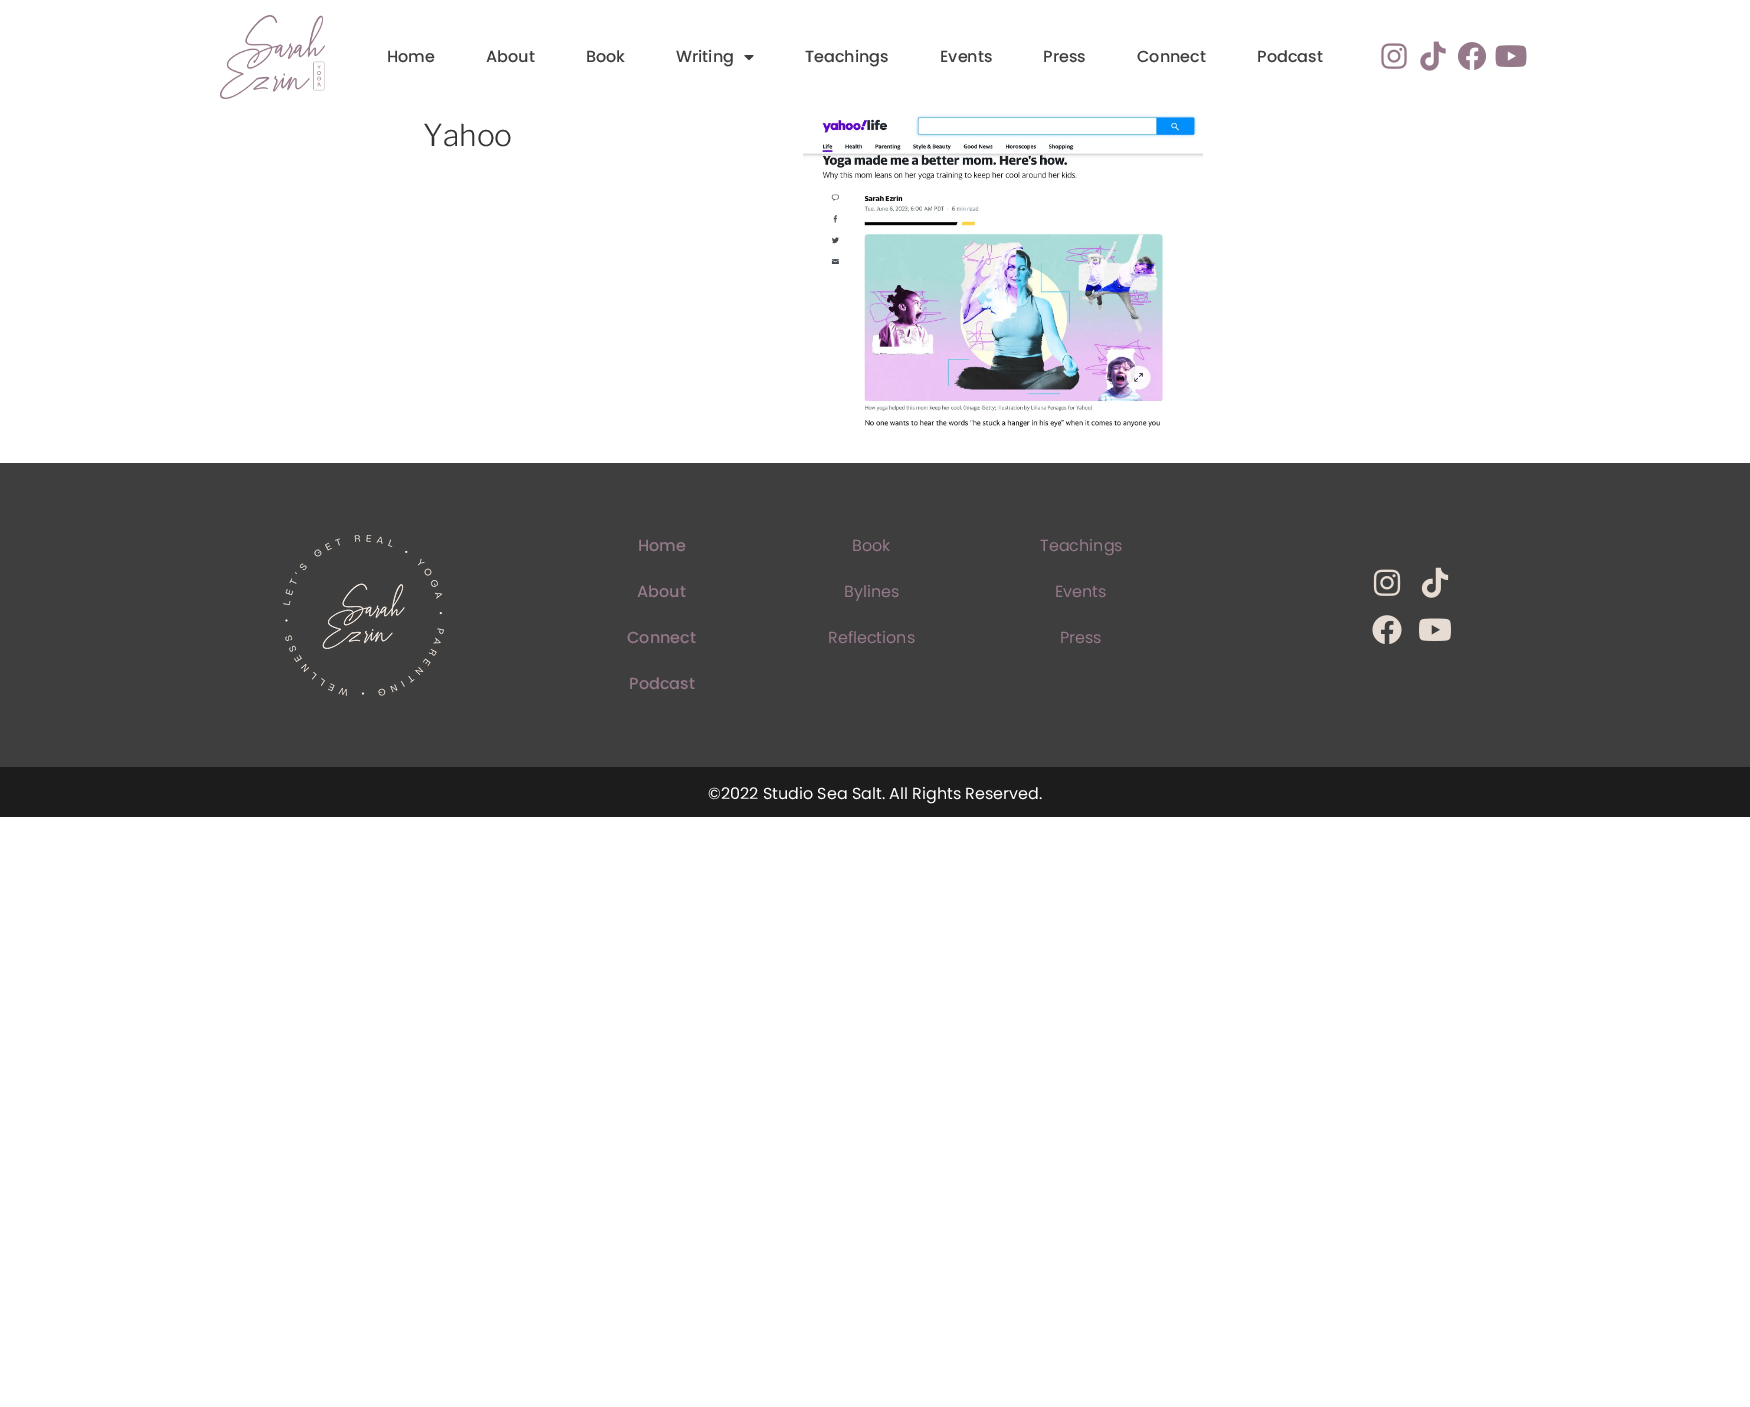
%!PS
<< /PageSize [1750 1407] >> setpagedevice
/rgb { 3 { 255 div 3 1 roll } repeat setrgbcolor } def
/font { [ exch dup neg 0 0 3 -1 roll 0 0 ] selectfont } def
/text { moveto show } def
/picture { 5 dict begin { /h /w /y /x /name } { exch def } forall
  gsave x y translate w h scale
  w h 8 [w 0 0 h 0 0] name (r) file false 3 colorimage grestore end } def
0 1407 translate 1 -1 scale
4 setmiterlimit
255 255 255 rgb
0 0 1750 1407 rectfill
(img_01.rgb) 220 15 105 84 picture
(img_02.rgb) 744 55 10 6 picture
(img_03.rgb) 1381 43 26 26 picture
(img_04.rgb) 1420 41 26 30 picture
(img_05.rgb) 1458 42 28 28 picture
(img_06.rgb) 1495 45 32 22 picture
(img_07.rgb) 803 114 400 314 picture
62 62 62 rgb
0 463 1750 304 rectfill
(img_08.rgb) 283 535 161 161 picture
(img_09.rgb) 1373 569 28 27 picture
(img_10.rgb) 1421 567 28 31 picture
(img_11.rgb) 1372 615 30 29 picture
(img_12.rgb) 1419 618 32 23 picture
28 28 28 rgb
0 767 1750 50 rectfill
/Poppins-Medium 16 font
62 62 62 rgb
(Home) 387 62 text
(About) 486 62 text
(Book) 586 62 text
(Writing) 676 62 text
(Teachings) 805 62 text
(Events) 940 62 text
(Press) 1043 62 text
(Connect) 1137 62 text
(Podcast) 1257 62 text
/LibreFranklin-Light 30 font
51 51 51 rgb
(Yahoo) 423 146 text
/Poppins-Medium 16 font
149 120 138 rgb
(Home) 638 551 text
(About) 637 597 text
(Connect) 627 643 text
(Podcast) 629 689 text
/Poppins-Regular 16 font
(Book) 852 551 text
(Bylines) 844 597 text
(Reflections) 828 643 text
(Teachings) 1040 551 text
(Events) 1055 597 text
(Press) 1060 643 text
255 255 255 rgb
(©2022 Studio Sea Salt. All Rights Reserved.) 708 799 text
showpage
